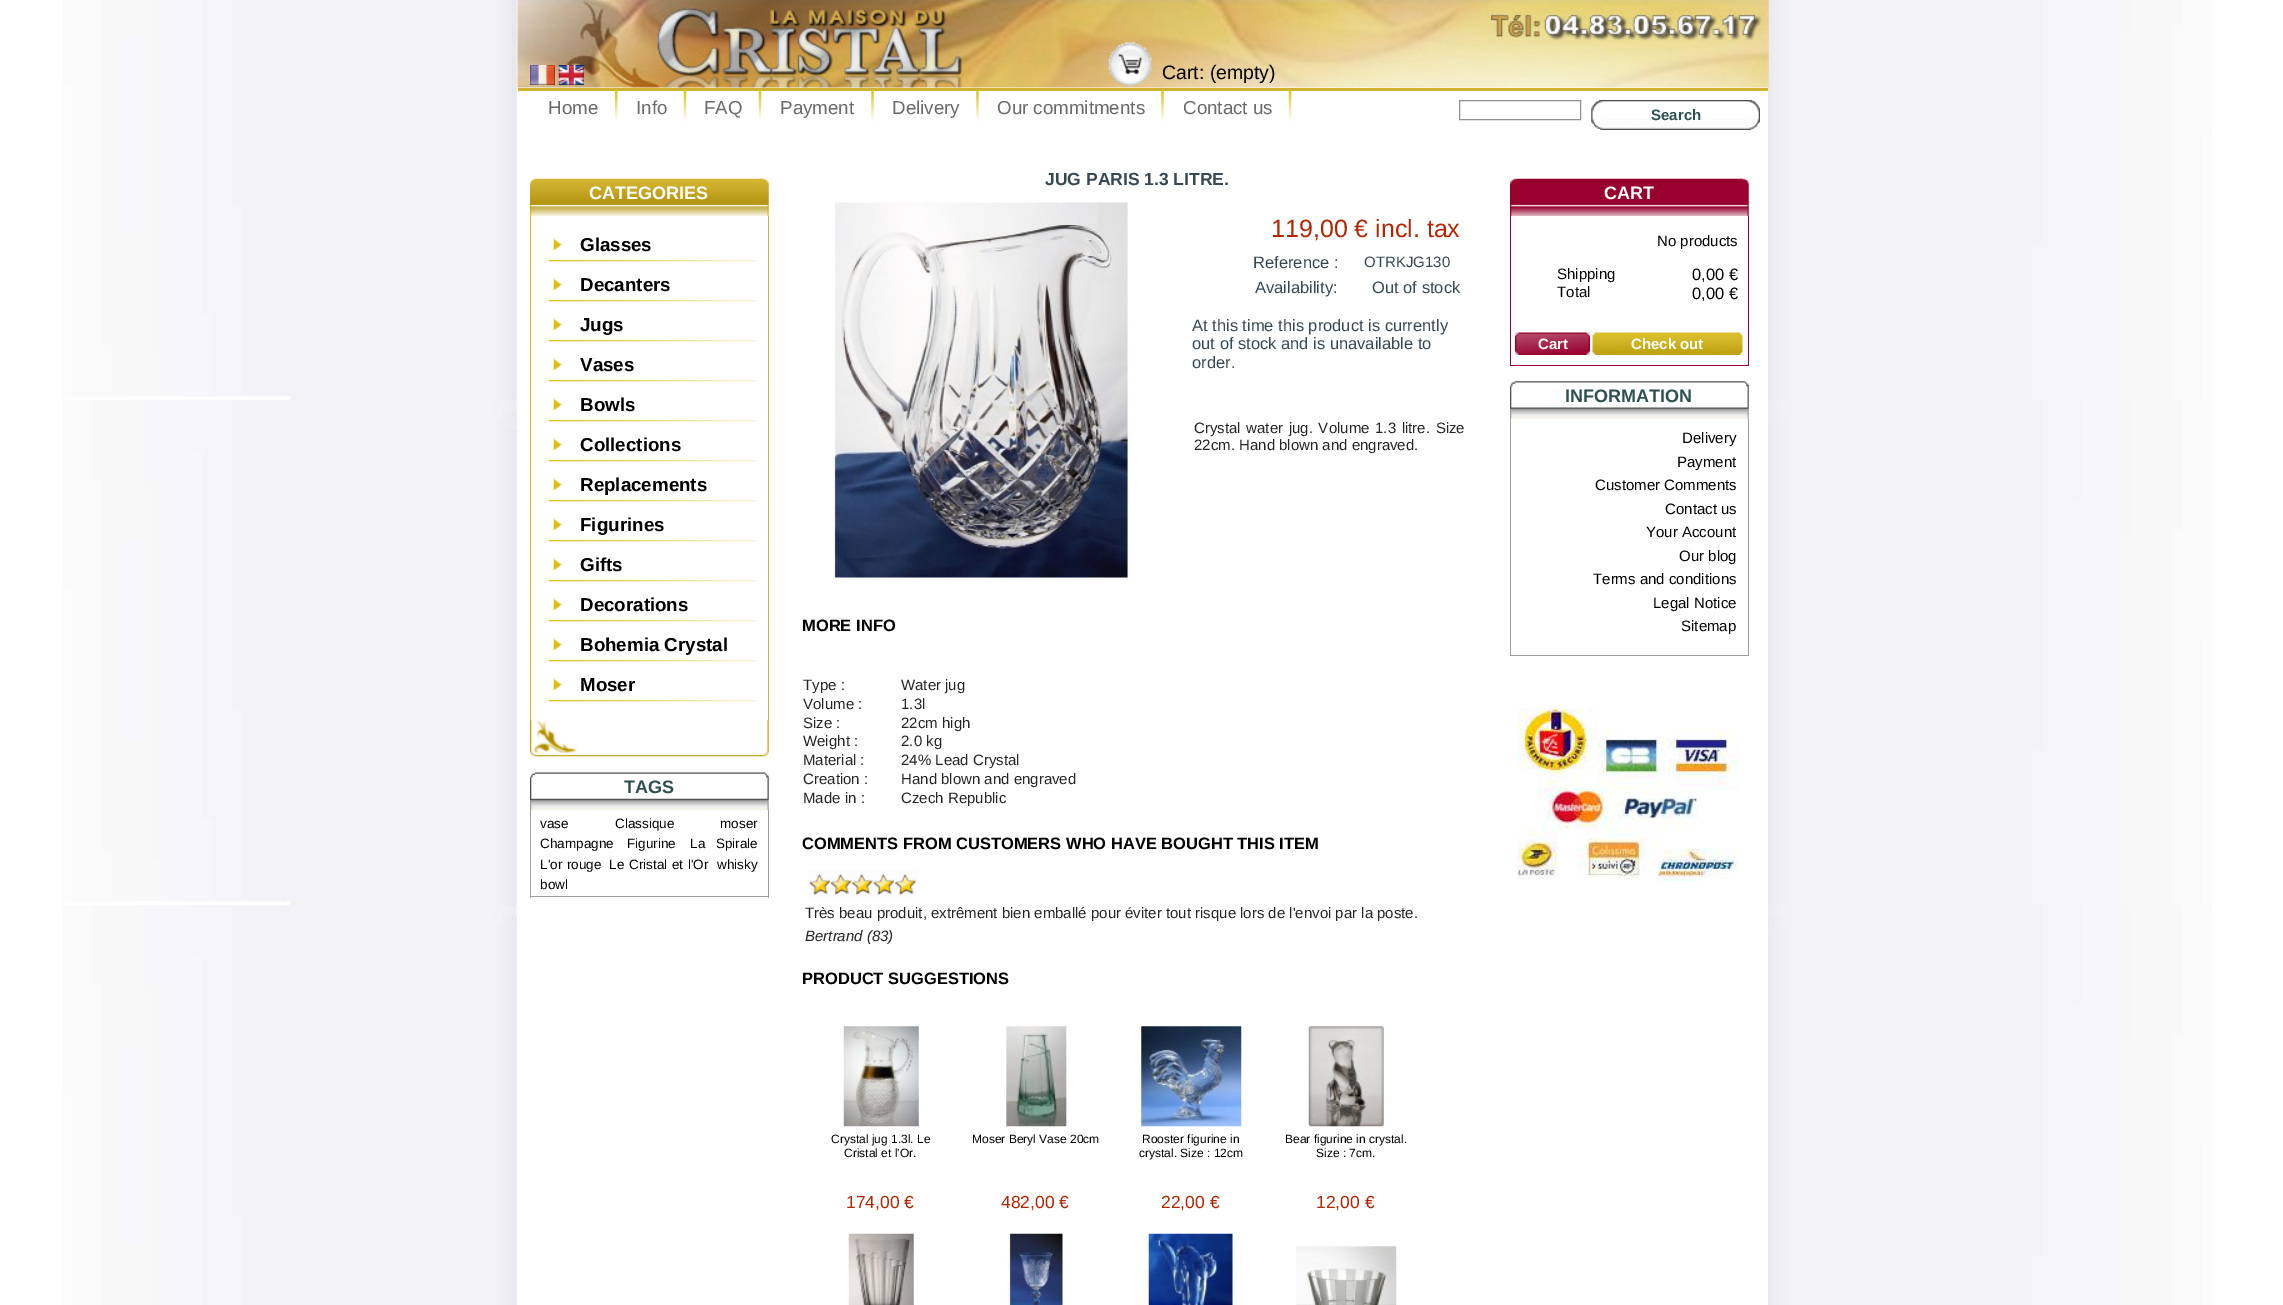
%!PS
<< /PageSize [2283 1305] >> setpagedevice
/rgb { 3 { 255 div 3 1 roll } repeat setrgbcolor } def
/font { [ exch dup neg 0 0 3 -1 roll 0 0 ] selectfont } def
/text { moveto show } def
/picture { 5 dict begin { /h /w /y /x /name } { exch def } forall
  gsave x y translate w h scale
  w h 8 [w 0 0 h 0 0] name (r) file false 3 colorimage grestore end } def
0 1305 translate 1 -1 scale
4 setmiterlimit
255 255 255 rgb
0 0 2283 1305 rectfill
(img_01.rgb) 62 0 2150 1305 picture
519 87 1249 1218 rectfill
208 178 47 rgb
518 88 1250 3 rectfill
(img_02.rgb) 615 90 3 31 picture
(img_03.rgb) 683 90 4 31 picture
(img_03.rgb) 758 90 4 31 picture
(img_04.rgb) 871 90 3 31 picture
(img_04.rgb) 976 90 3 31 picture
(img_04.rgb) 1161 90 3 31 picture
(img_03.rgb) 1288 90 4 31 picture
(img_05.rgb) 517 0 1252 88 picture
(img_06.rgb) 530 65 25 20 picture
(img_07.rgb) 558 65 26 20 picture
(img_08.rgb) 1108 42 44 45 picture
144 144 144 rgb
1459.5 100.5 121 19 rectstroke
(img_09.rgb) 1591 100 169 30 picture
(img_10.rgb) 530 720 239 37 picture
(img_11.rgb) 530 178 239 38 picture
208 178 47 rgb
768 216 1 504 rectfill
530 216 1 504 rectfill
(img_12.rgb) 548 238 209 24 picture
(img_12.rgb) 548 278 209 24 picture
(img_12.rgb) 548 318 209 24 picture
(img_12.rgb) 548 358 209 24 picture
(img_12.rgb) 548 398 209 24 picture
(img_12.rgb) 548 438 209 24 picture
(img_12.rgb) 548 478 209 24 picture
(img_12.rgb) 548 518 209 24 picture
(img_12.rgb) 548 558 209 24 picture
(img_13.rgb) 548 598 209 24 picture
(img_12.rgb) 548 638 209 24 picture
(img_12.rgb) 548 678 209 24 picture
(img_14.rgb) 530 772 239 38 picture
158 158 158 rgb
768 810 1 88 rectfill
530 896 239 1 rectfill
530 810 1 88 rectfill
(img_15.rgb) 833 202 301 376 picture
(img_16.rgb) 808 870 109 27 picture
(img_17.rgb) 843 1026 76 101 picture
(img_18.rgb) 1006 1026 61 101 picture
(img_19.rgb) 1141 1026 101 101 picture
(img_20.rgb) 1307 1026 79 101 picture
(img_21.rgb) 848 1233 66 72 picture
(img_22.rgb) 1007 1233 58 72 picture
(img_23.rgb) 1141 1233 100 72 picture
(img_24.rgb) 1296 1246 101 59 picture
(img_25.rgb) 1510 178 239 38 picture
152 0 45 rgb
1748 216 1 150 rectfill
1510 365 239 1 rectfill
1510 216 1 150 rectfill
(img_26.rgb) 1515 332 75 23 picture
(img_27.rgb) 1592 332 151 23 picture
(img_28.rgb) 1510 381 239 38 picture
158 158 158 rgb
1748 419 1 237 rectfill
1510 655 239 1 rectfill
1510 419 1 237 rectfill
(img_29.rgb) 1517 708 221 173 picture
/LiberationSans-Regular 18.75 font
107 107 107 rgb
(Home) 548 114 text
(Info) 636 114 text
(FAQ) 704 114 text
(Payment) 780 114 text
(Delivery) 892 114 text
(Our commitments) 997 114 text
(Contact us) 1183 114 text
/LiberationSans-Regular 19.5 font
0 0 0 rgb
(Cart: \(empty\)) 1162 79 text
/LiberationSans-Bold 15 font
47 79 79 rgb
(Search) 1651 120 text
/LiberationSans-Bold 18 font
255 255 255 rgb
(CATEGORIES) 589 199 text
/LiberationSans-Bold 18.75 font
0 0 0 rgb
(Glasses) 580 251 text
(Decanters) 580 291 text
(Jugs) 580 331 text
(Vases) 580 371 text
(Bowls) 580 411 text
(Collections) 580 451 text
(Replacements) 580 491 text
(Figurines) 580 531 text
(Gifts) 580 571 text
(Decorations) 580 611 text
(Bohemia Crystal) 580 651 text
(Moser) 580 691 text
/LiberationSans-Bold 18 font
47 79 79 rgb
(TAGS) 624 793 text
/LiberationSans-Regular 13.5 font
0 0 0 rgb
(vase) 540 828 text
(Classique) 615 828 text
(moser) 720 828 text
(Champagne) 540 848 text
(Figurine) 627 848 text
690 848 moveto 7 0 32 (La Spirale) widthshow
540 869 moveto 1 0 32 (L'or rouge) widthshow
609 869 moveto 1 0 32 (Le Cristal et l'Or) widthshow
(whisky) 717 869 text
(bowl) 540 889 text
/LiberationSans-Bold 17.5 font
55 72 83 rgb
(JUG PARIS 1.3 LITRE.) 1045 185 text
/LiberationSans-Regular 25 font
177 39 4 rgb
(119,00 € incl. tax) 1271 237 text
/LiberationSans-Regular 16.5 font
55 72 83 rgb
(Reference :) 1253 268 text
/LiberationSans-Regular 15 font
(OTRKJG130) 1364 267 text
/LiberationSans-Regular 16.5 font
(Availability:) 1255 293 text
(Out of stock) 1372 293 text
(At this time this product is currently) 1192 331 text
(out of stock and is unavailable to) 1192 349 text
(order.) 1192 368 text
/LiberationSans-Regular 15 font
38 38 38 rgb
1194 433 moveto 1.5 0 32 (Crystal water jug. Volume 1.3 litre. Size) widthshow
(22cm. Hand blown and engraved.) 1194 450 text
/LiberationSans-Bold 16.5 font
0 0 0 rgb
(MORE INFO) 802 631 text
/LiberationSans-Regular 15 font
38 38 38 rgb
(Type :) 803 690 text
(Water jug) 901 690 text
(Volume :) 803 709 text
(1.3l) 901 709 text
(Size :) 803 728 text
(22cm high) 901 728 text
(Weight :) 803 746 text
(2.0 kg) 901 746 text
(Material :) 803 765 text
(24% Lead Crystal) 901 765 text
(Creation :) 803 784 text
(Hand blown and engraved) 901 784 text
(Made in :) 803 803 text
(Czech Republic) 901 803 text
/LiberationSans-Bold 16.5 font
0 0 0 rgb
(COMMENTS FROM CUSTOMERS WHO HAVE BOUGHT THIS ITEM) 802 849 text
/LiberationSans-Regular 15 font
38 38 38 rgb
(Très beau produit, extrêment bien emballé pour éviter tout risque lors de l'envoi par la poste.) 805 918 text
/LiberationSans-Italic 15 font
(Bertrand \(83\)) 805 941 text
/LiberationSans-Bold 16.5 font
0 0 0 rgb
(PRODUCT SUGGESTIONS) 802 984 text
/LiberationSans-Regular 12 font
(Crystal jug 1.3l. Le) 831 1143 text
(Cristal et l'Or.) 844 1157 text
/LiberationSans-Regular 17.5 font
177 39 4 rgb
(174,00 €) 846 1208 text
/LiberationSans-Regular 12 font
0 0 0 rgb
(Moser Beryl Vase 20cm) 972 1143 text
/LiberationSans-Regular 17.5 font
177 39 4 rgb
(482,00 €) 1001 1208 text
/LiberationSans-Regular 12 font
0 0 0 rgb
(Rooster figurine in) 1142 1143 text
(crystal. Size : 12cm) 1139 1157 text
/LiberationSans-Regular 17.5 font
177 39 4 rgb
(22,00 €) 1161 1208 text
/LiberationSans-Regular 12 font
0 0 0 rgb
(Bear figurine in crystal.) 1285 1143 text
(Size : 7cm.) 1316 1157 text
/LiberationSans-Regular 17.5 font
177 39 4 rgb
(12,00 €) 1316 1208 text
/LiberationSans-Bold 18 font
255 255 255 rgb
(CART) 1604 199 text
/LiberationSans-Regular 15 font
0 0 0 rgb
(No products) 1657 246 text
(Shipping) 1557 279 text
/LiberationSans-Regular 16.5 font
(0,00 €) 1692 280 text
/LiberationSans-Regular 15 font
(Total) 1557 297 text
/LiberationSans-Regular 16.5 font
(0,00 €) 1692 299 text
/LiberationSans-Bold 15 font
255 255 255 rgb
(Cart) 1538 349 text
(Check out) 1631 349 text
/LiberationSans-Bold 18 font
47 79 79 rgb
(INFORMATION) 1565 402 text
/LiberationSans-Regular 15 font
0 0 0 rgb
(Delivery) 1682 443 text
(Payment) 1677 467 text
(Customer Comments) 1595 490 text
(Contact us) 1665 514 text
(Your Account) 1646 537 text
(Our blog) 1679 561 text
(Terms and conditions) 1593 584 text
(Legal Notice) 1653 608 text
(Sitemap) 1681 631 text
showpage
